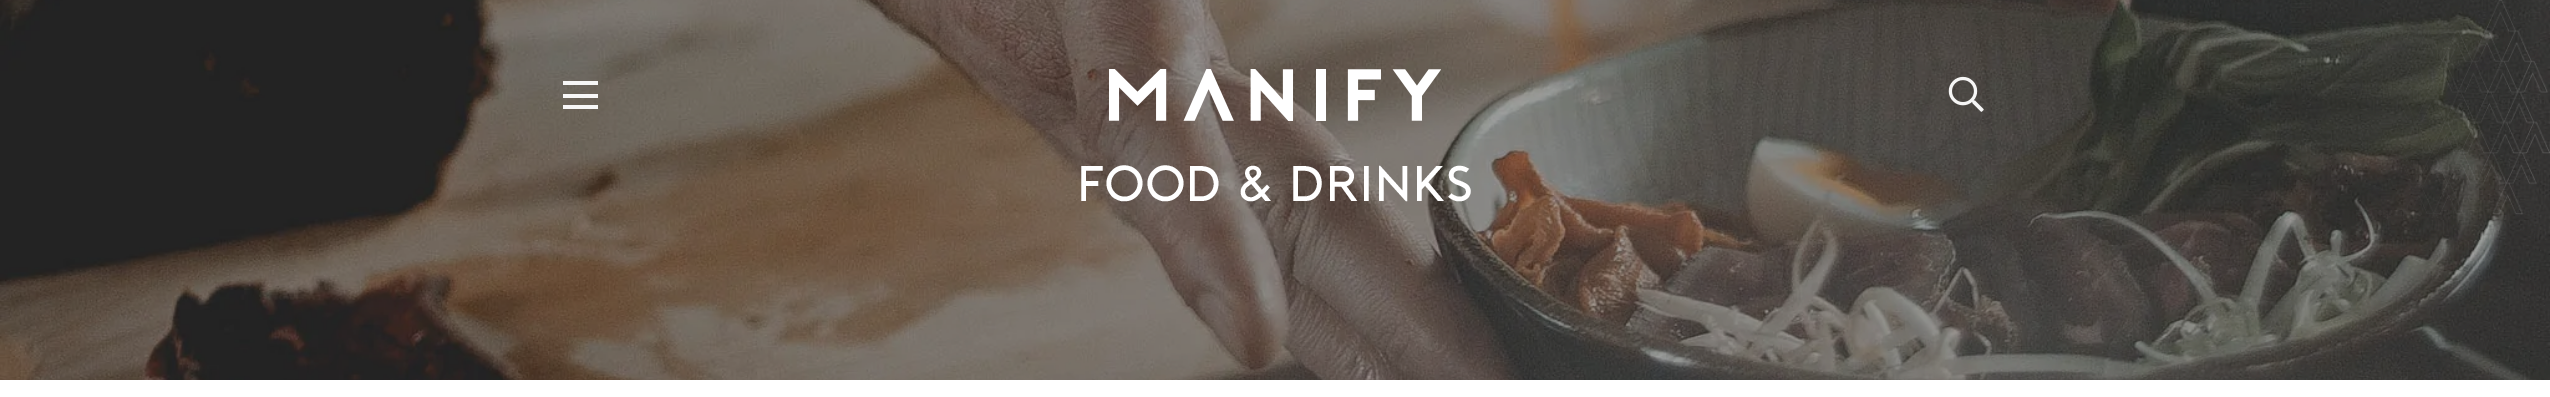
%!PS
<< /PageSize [2550 397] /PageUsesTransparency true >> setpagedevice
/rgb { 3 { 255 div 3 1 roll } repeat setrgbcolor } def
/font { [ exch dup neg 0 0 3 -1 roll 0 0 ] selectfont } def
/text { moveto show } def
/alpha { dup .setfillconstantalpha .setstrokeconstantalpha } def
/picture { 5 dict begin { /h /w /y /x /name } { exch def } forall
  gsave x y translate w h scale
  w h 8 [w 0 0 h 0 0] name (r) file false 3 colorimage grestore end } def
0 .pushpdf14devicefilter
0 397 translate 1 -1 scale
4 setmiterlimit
255 255 255 rgb
0 0 2550 397 rectfill
(img_03.rgb) 0 0 2550 380 picture
0.95 alpha
563 94 35 4 rectfill
563 81 35 4 rectfill
563 105 35 4 rectfill
1 alpha
(img_01.rgb) 1109 69 332 52 picture
(img_02.rgb) 1948 76 36 36 picture
(img_04.rgb) 2401 0 149 218 picture
/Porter-Light 50 font
(Food & Drinks) 1076 201 text
.poppdf14devicefilter showpage
